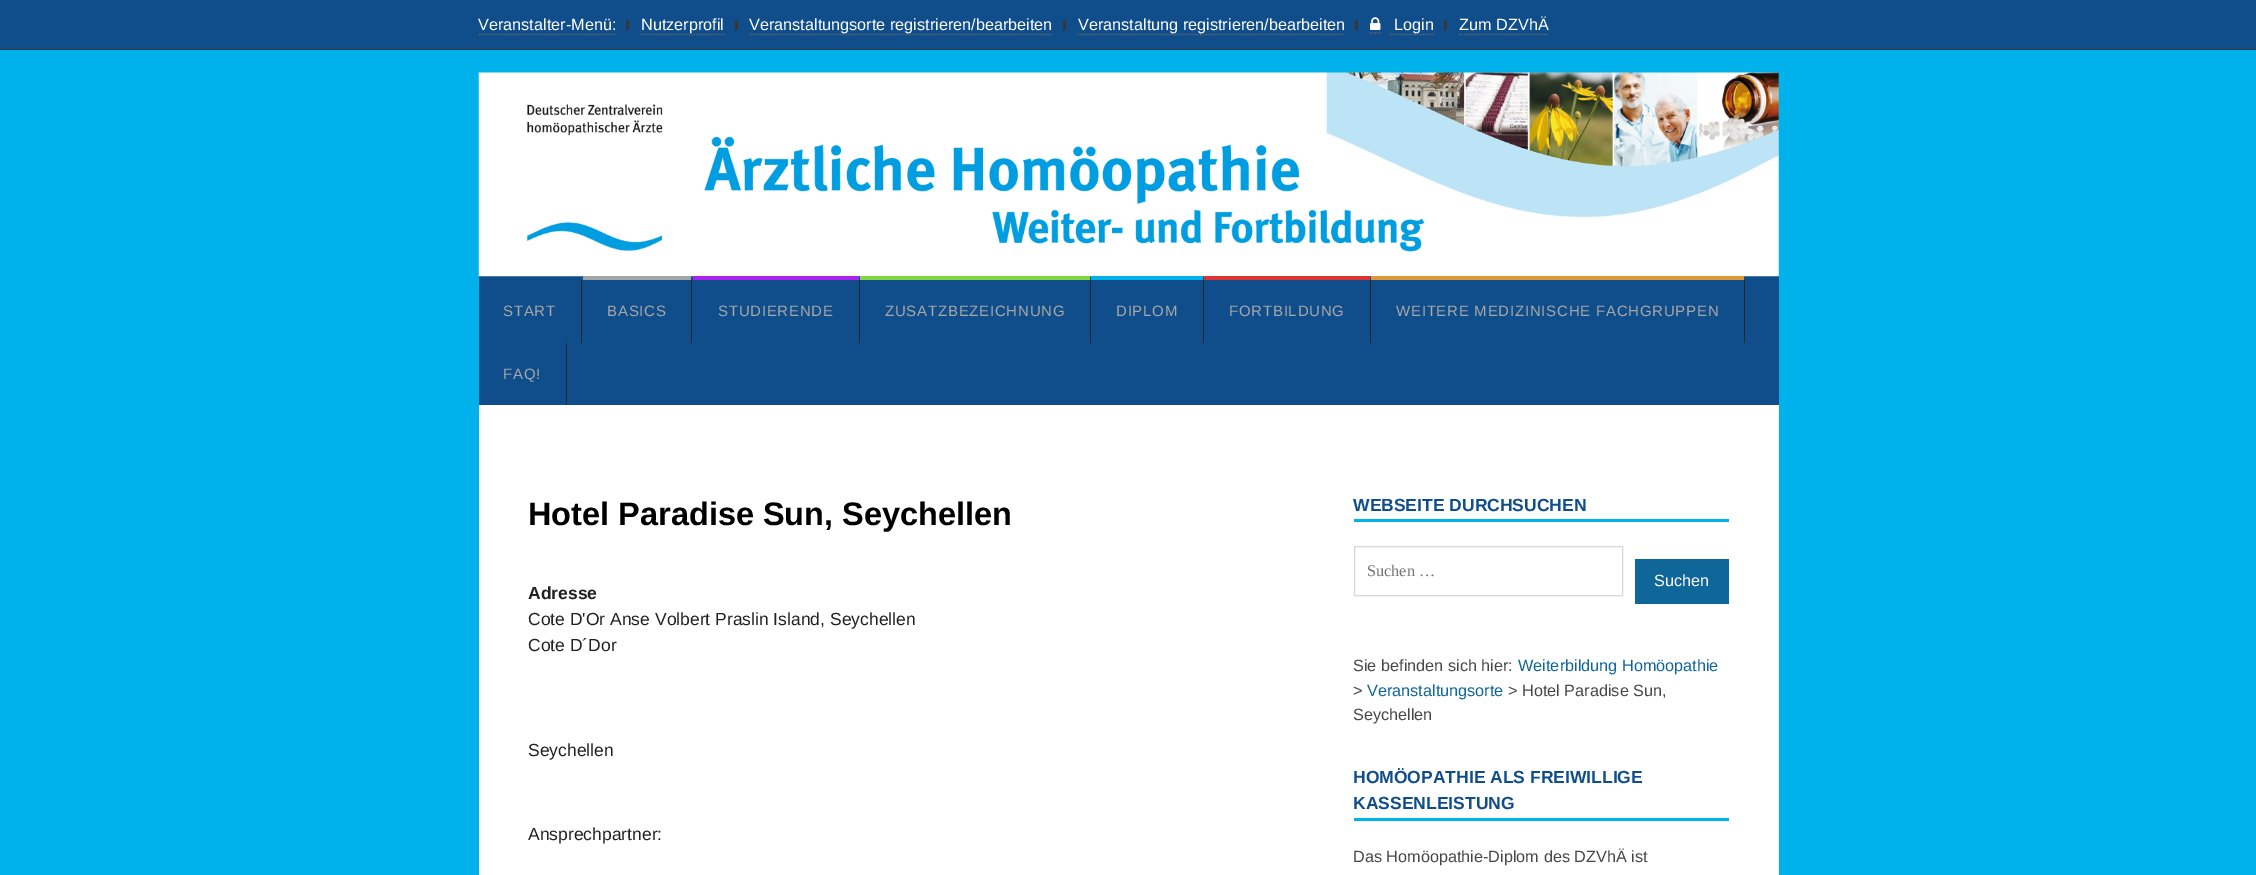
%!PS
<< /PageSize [2256 875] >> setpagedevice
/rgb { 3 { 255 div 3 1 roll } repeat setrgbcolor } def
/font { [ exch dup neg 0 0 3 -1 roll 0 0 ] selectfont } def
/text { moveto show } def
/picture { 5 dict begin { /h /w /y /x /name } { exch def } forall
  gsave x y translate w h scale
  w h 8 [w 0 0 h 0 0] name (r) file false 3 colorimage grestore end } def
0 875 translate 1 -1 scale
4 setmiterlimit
0 178 235 rgb
0 0 2256 875 rectfill
16 78 139 rgb
0 0 2256 49 rectfill
55 55 55 rgb
0 49 2256 1 rectfill
103 103 103 rgb
1.2 setlinewidth
[1.25 1.25] 0 setdash
479 34.5 moveto 137 0 rlineto stroke
55 55 55 rgb
626 20 3 10 rectfill
103 103 103 rgb
641 34.5 moveto 84 0 rlineto stroke
55 55 55 rgb
735 20 3 10 rectfill
103 103 103 rgb
750 34.5 moveto 302.5 0 rlineto stroke
55 55 55 rgb
1063 20 3 10 rectfill
103 103 103 rgb
1077.5 34.5 moveto 267.5 0 rlineto stroke
55 55 55 rgb
1355 20 3 10 rectfill
103 103 103 rgb
1370 33 moveto 11 0 rlineto stroke
1390 34.5 moveto 44 0 rlineto stroke
(img_01.rgb) 1370 17 11 13 picture
55 55 55 rgb
1444 20 3 10 rectfill
103 103 103 rgb
1459 34.5 moveto 90 0 rlineto stroke
16 78 139 rgb
479 276 1300 129 rectfill
(img_02.rgb) 478 72 1301 205 picture
39 39 39 rgb
581 280 1 63 rectfill
691 280 1 63 rectfill
165 165 165 rgb
583 276 108 4 rectfill
39 39 39 rgb
859 280 1 63 rectfill
169 35 237 rgb
693 276 166 4 rectfill
39 39 39 rgb
1090 280 1 63 rectfill
129 215 66 rgb
860 276 230 4 rectfill
39 39 39 rgb
1203 280 1 63 rectfill
0 178 235 rgb
1091 276 112 4 rectfill
39 39 39 rgb
1370 280 1 63 rectfill
221 51 51 rgb
1204 276 166 4 rectfill
39 39 39 rgb
1744 280 1 63 rectfill
221 153 51 rgb
1371 276 373 4 rectfill
39 39 39 rgb
566 343 1 62 rectfill
255 255 255 rgb
479 405 1300 470 rectfill
0 178 235 rgb
1354 519 375 3 rectfill
215 215 215 rgb
1 setlinewidth
[] 0 setdash
1354.5 546.5 268 49 rectstroke
15 102 152 rgb
1635 559 94 45 rectfill
0 178 235 rgb
1354 818 375 3 rectfill
/LiberationSans-Regular 16.25 font
255 255 255 rgb
(Veranstalter-Menü:) 478 30 text
(Nutzerprofil) 641 30 text
(Veranstaltungsorte registrieren/bearbeiten) 749 30 text
(Veranstaltung registrieren/bearbeiten) 1078 30 text
(Login) 1394 30 text
(Zum DZVhÄ) 1459 30 text
/LiberationSans-Regular 15 font
167 167 167 rgb
503 316 moveto 0.75 0 (START) ashow
607 316 moveto 0.75 0 (BASICS) ashow
718 316 moveto 0.75 0 (STUDIERENDE) ashow
885 316 moveto 0.75 0 (ZUSATZBEZEICHNUNG) ashow
1116 316 moveto 0.75 0 (DIPLOM) ashow
1229 316 moveto 0.75 0 (FORTBILDUNG) ashow
1396 316 moveto 0.75 0 (WEITERE MEDIZINISCHE FACHGRUPPEN) ashow
503 379 moveto 0.75 0 (FAQ!) ashow
/LiberationSans-Bold 32.5 font
0 0 0 rgb
(Hotel Paradise Sun, Seychellen) 528 525 text
/LiberationSans-Bold 17.5 font
33 33 33 rgb
(Adresse) 528 599 text
/LiberationSans-Regular 17.5 font
(Cote D'Or Anse Volbert Praslin Island, Seychellen) 528 625 text
(Cote D´Dor) 528 651 text
(Seychellen) 528 756 text
(Ansprechpartner:) 528 840 text
/LiberationSans-Bold 17.5 font
16 78 139 rgb
(WEBSEITE DURCHSUCHEN) 1353 511 text
/LiberationSerif-Regular 16.25 font
117 117 117 rgb
(Suchen …) 1367 576 text
/LiberationSans-Regular 16.25 font
255 255 255 rgb
(Suchen) 1654 586 text
71 71 71 rgb
(Sie befinden sich hier:) 1353 671 text
15 102 152 rgb
(Weiterbildung Homöopathie) 1518 671 text
71 71 71 rgb
(>) 1353 696 text
15 102 152 rgb
(Veranstaltungsorte) 1367 696 text
71 71 71 rgb
(> Hotel Paradise Sun,) 1508 696 text
(Seychellen) 1353 720 text
/LiberationSans-Bold 17.5 font
16 78 139 rgb
(HOMÖOPATHIE ALS FREIWILLIGE) 1353 783 text
(KASSENLEISTUNG) 1353 809 text
/LiberationSans-Regular 16.25 font
71 71 71 rgb
(Das Homöopathie-Diplom des DZVhÄ ist) 1353 862 text
showpage
